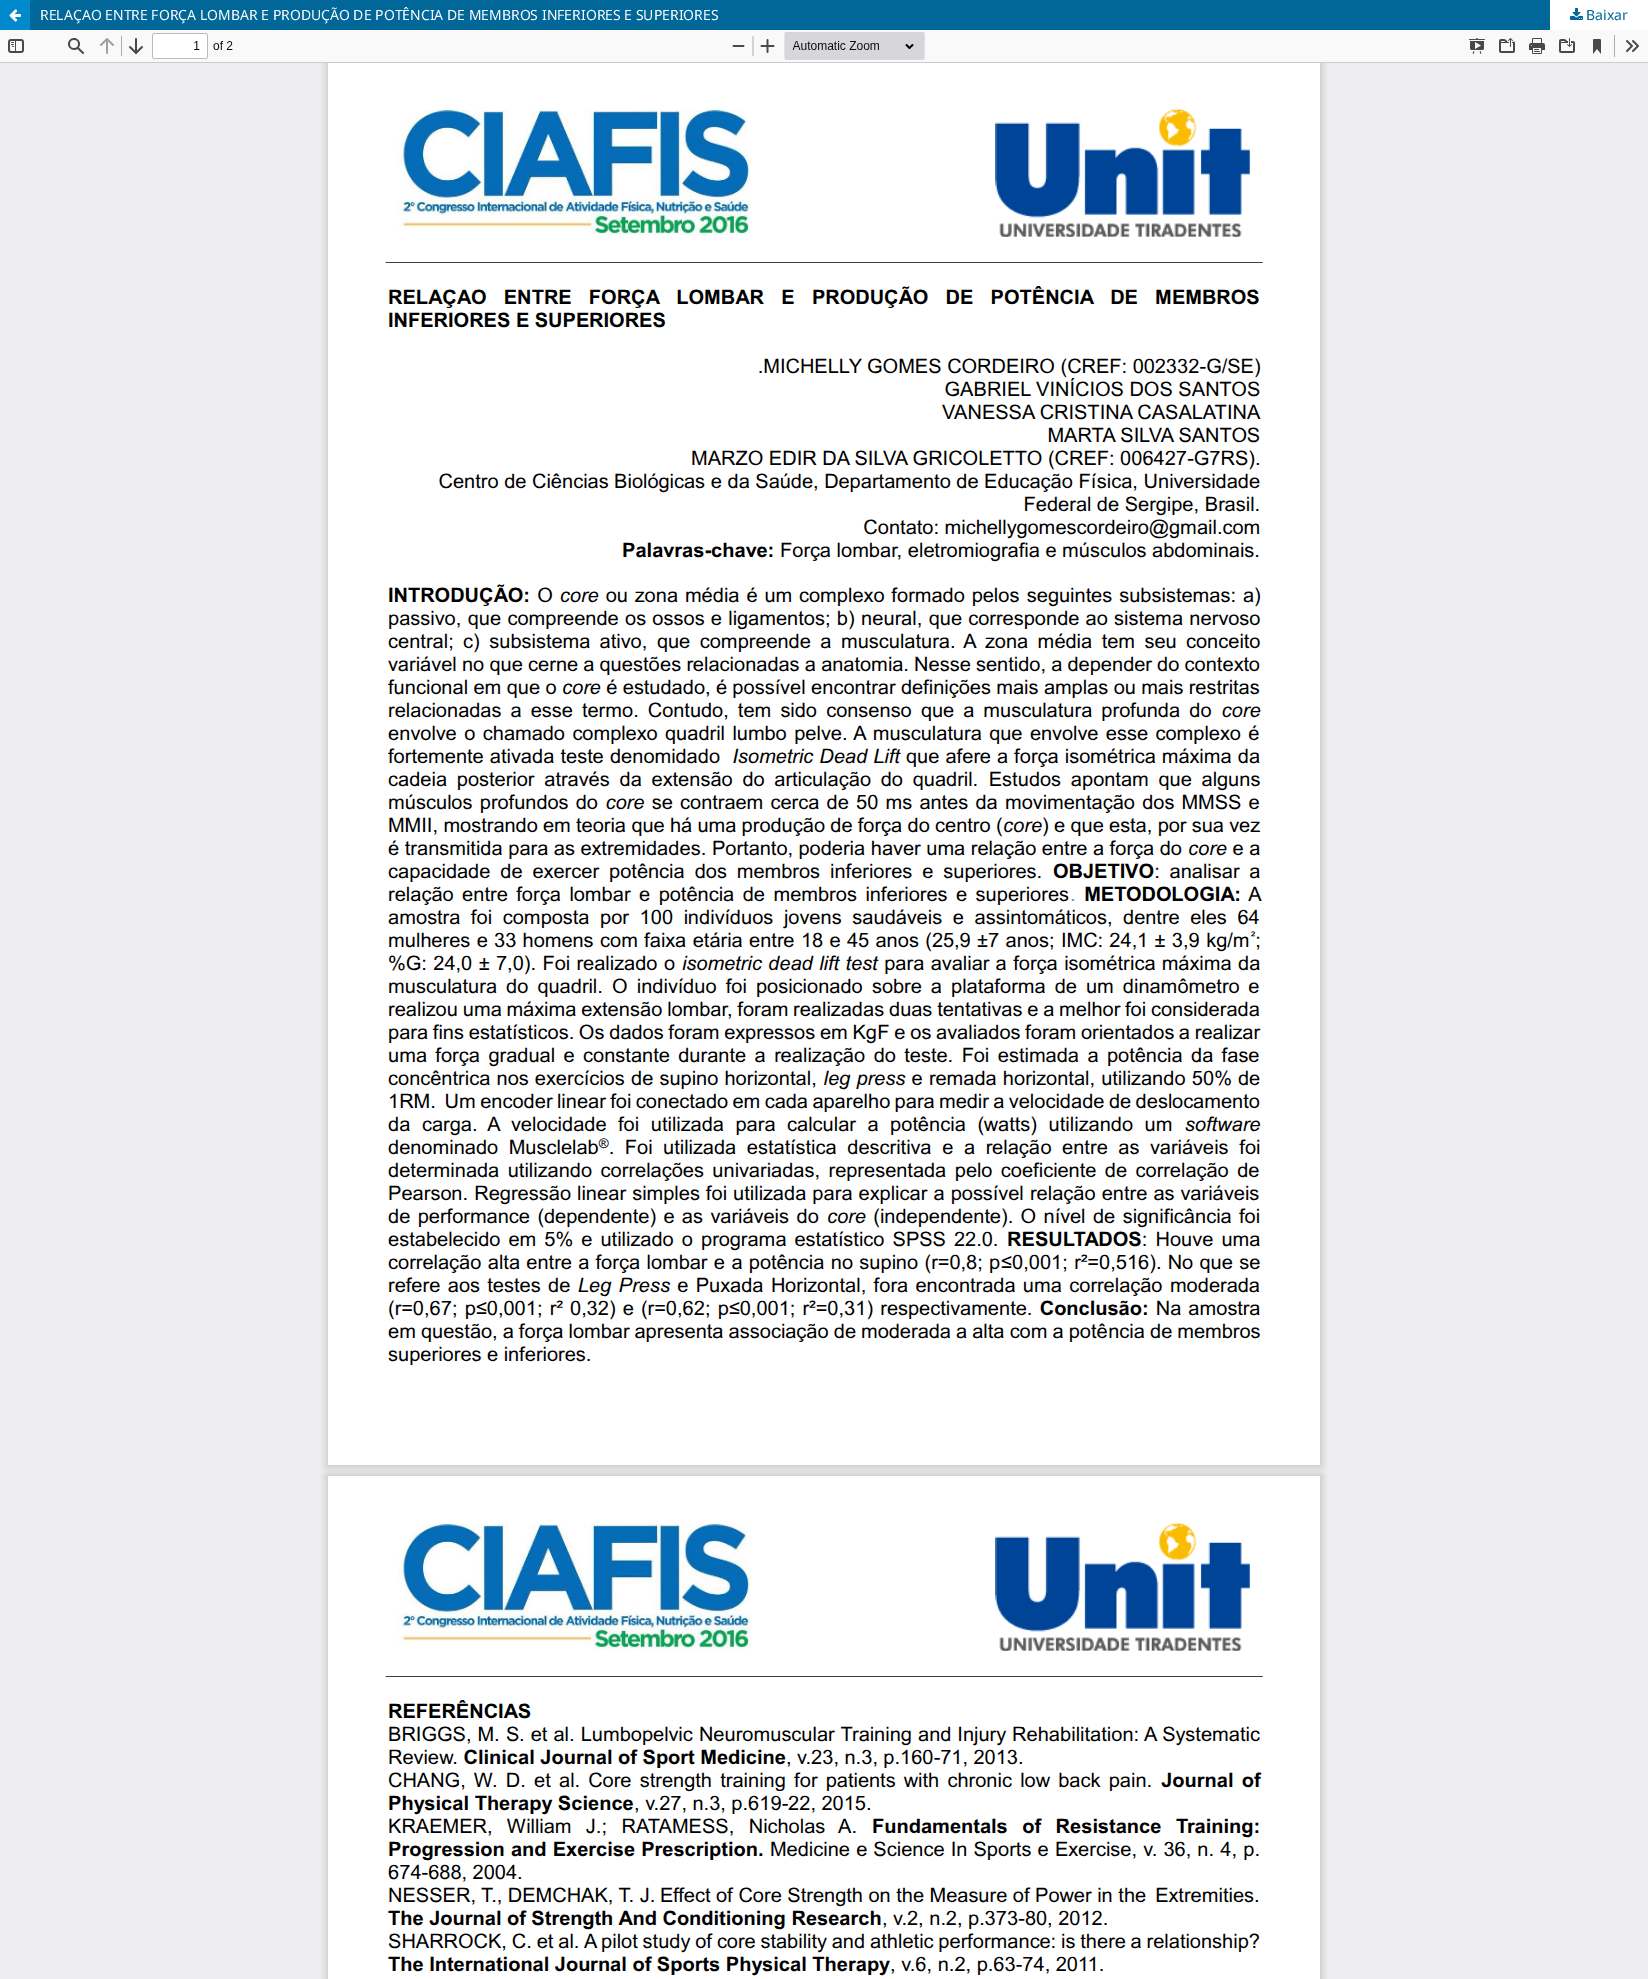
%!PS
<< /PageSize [1648 1979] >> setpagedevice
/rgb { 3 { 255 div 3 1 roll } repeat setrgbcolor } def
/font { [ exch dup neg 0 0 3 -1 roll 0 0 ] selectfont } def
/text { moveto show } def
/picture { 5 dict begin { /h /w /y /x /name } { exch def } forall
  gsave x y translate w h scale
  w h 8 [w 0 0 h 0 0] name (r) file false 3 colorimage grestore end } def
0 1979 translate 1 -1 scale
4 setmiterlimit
255 255 255 rgb
0 0 1648 1979 rectfill
0 103 152 rgb
30 0 1520 30 rectfill
0 138 203 rgb
0 0 30 30 rectfill
(img_01.rgb) 9 9 12 13 picture
(img_02.rgb) 1570 8 13 12 picture
(img_03.rgb) 0 30 1648 1949 picture
/NotoSans-Regular 14 font
255 255 255 rgb
(RELAÇAO ENTRE FORÇA LOMBAR E PRODUÇÃO DE POTÊNCIA DE MEMBROS INFERIORES E SUPERIORES) 40 20 text
0 103 152 rgb
(Baixar) 1586 20 text
showpage
